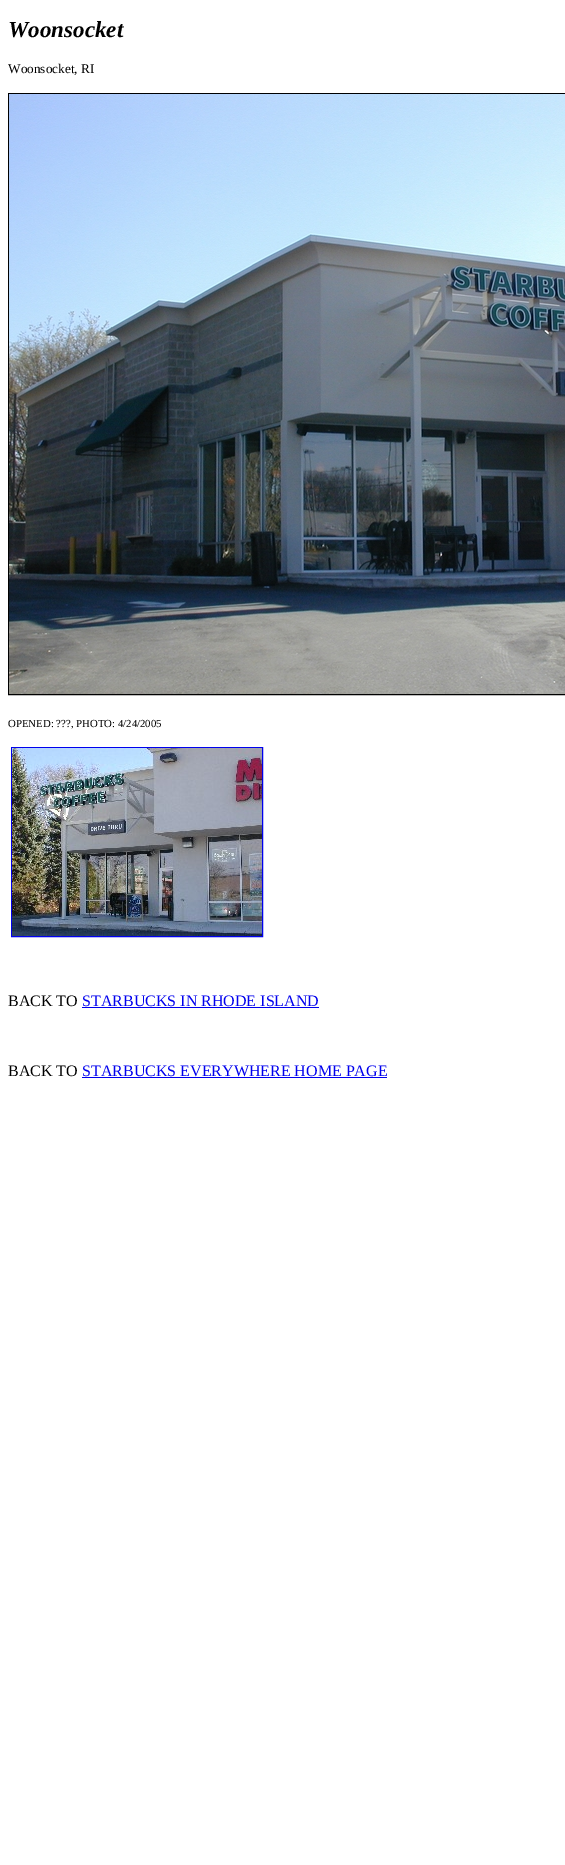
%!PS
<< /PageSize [565 1865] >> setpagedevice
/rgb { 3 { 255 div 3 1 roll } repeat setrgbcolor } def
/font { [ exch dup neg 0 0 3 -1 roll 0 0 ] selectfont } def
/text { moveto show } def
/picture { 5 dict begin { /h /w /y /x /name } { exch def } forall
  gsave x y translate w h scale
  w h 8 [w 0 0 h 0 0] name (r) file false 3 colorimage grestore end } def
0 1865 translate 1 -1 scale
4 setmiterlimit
255 255 255 rgb
0 0 565 1865 rectfill
0 0 0 rgb
8.5 93.5 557 601 rectstroke
(img_01.rgb) 9 94 556 600 picture
0 0 238 rgb
11.5 747.5 251 189 rectstroke
(img_02.rgb) 12 748 250 188 picture
82 1007 237 1 rectfill
82 1077 305 1 rectfill
/LiberationSerif-BoldItalic 23 font
0 0 0 rgb
(Woonsocket) 8 37 text
/LiberationSerif-Regular 13.25 font
(Woonsocket, RI) 8 73 text
/LiberationSerif-Regular 10.8 font
(OPENED: ???, PHOTO: 4/24/2005) 8 727 text
/LiberationSerif-Regular 16 font
(BACK TO) 8 1006 text
0 0 238 rgb
(STARBUCKS IN RHODE ISLAND) 82 1006 text
0 0 0 rgb
(BACK TO) 8 1076 text
0 0 238 rgb
(STARBUCKS EVERYWHERE HOME PAGE) 82 1076 text
showpage
